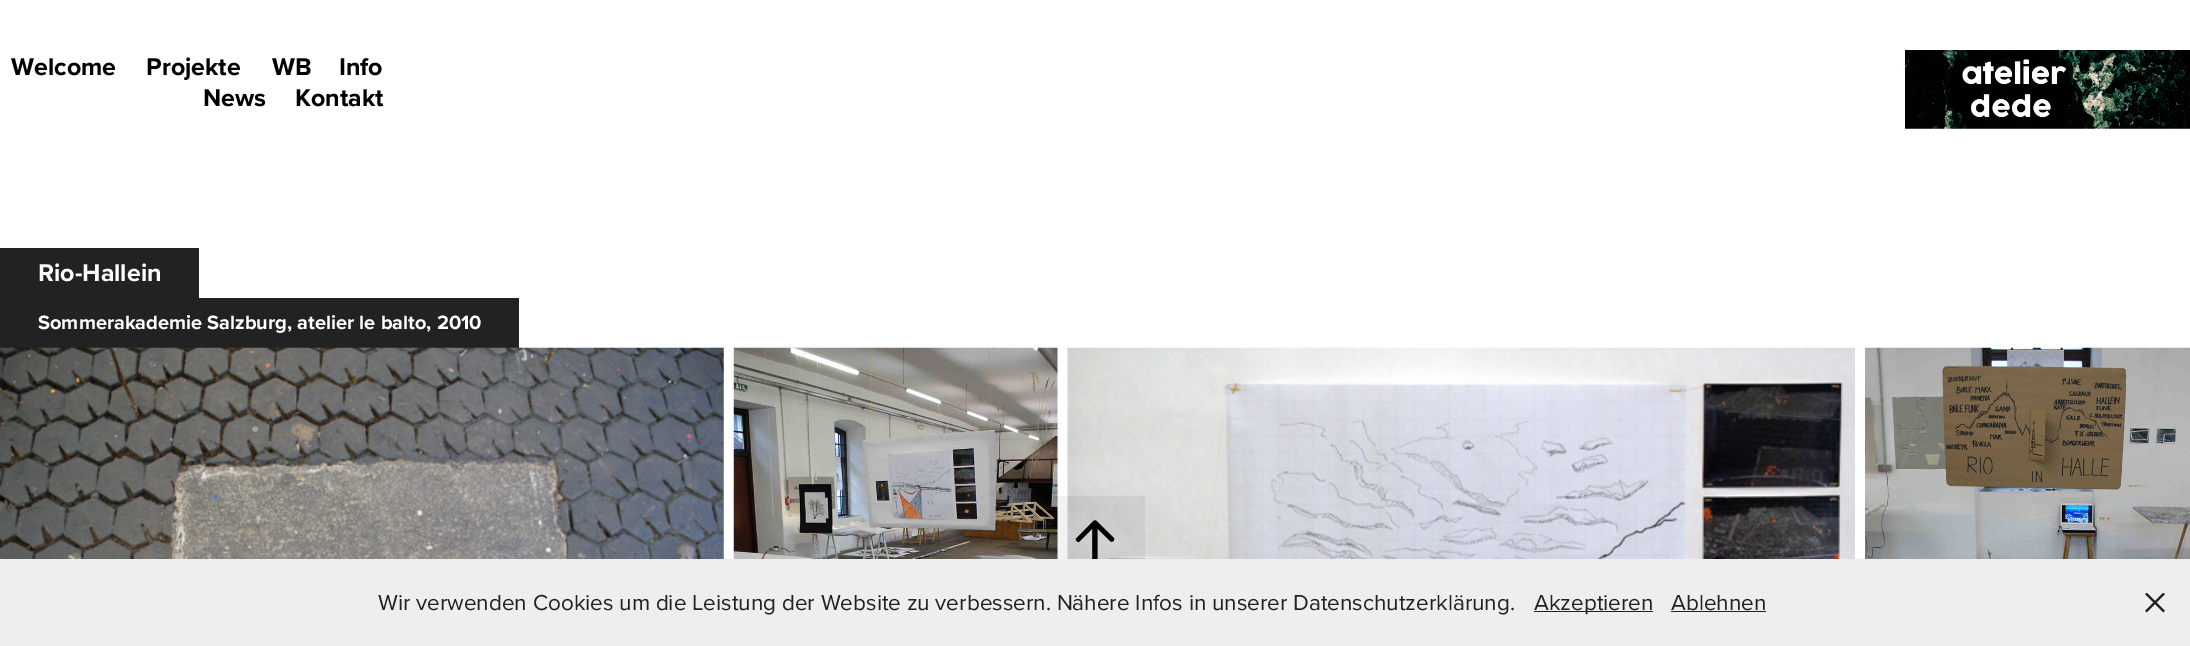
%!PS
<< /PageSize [2190 646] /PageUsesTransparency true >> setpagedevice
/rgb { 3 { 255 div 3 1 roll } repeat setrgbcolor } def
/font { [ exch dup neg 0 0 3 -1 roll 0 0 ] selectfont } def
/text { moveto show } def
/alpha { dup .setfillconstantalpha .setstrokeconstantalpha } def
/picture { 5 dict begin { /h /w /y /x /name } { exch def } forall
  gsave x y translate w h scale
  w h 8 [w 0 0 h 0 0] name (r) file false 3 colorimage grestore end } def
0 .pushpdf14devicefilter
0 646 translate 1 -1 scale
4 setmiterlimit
255 255 255 rgb
0 0 2190 646 rectfill
(img_01.rgb) 1905 50 285 79 picture
34 34 34 rgb
0 248 199 50 rectfill
0 298 519 50 rectfill
(img_02.rgb) 0 347 724 212 picture
(img_03.rgb) 733 347 325 212 picture
(img_04.rgb) 1067 347 788 212 picture
(img_05.rgb) 1865 347 325 212 picture
0.05 alpha
0 0 0 rgb
1045 496 100 63 rectfill
1 alpha
(img_06.rgb) 1075 520 40 39 picture
237 238 238 rgb
0 559 2190 87 rectfill
33 33 33 rgb
1534 611 119 1 rectfill
1671 611 95 1 rectfill
(img_07.rgb) 2145 593 20 20 picture
/ProximaNova-Bold 25 font
0 0 0 rgb
(Welcome) 11 75 text
(Projekte) 146 75 text
(WB) 272 75 text
(Info) 339 75 text
(News) 203 106 text
(Kontakt) 295 106 text
255 255 255 rgb
(Rio-Hallein) 38 281 text
/ProximaNova-Bold 20 font
(Sommerakademie Salzburg, atelier le balto, 2010) 38 329 text
/ProximaNova-Regular 22.5 font
33 33 33 rgb
(Wir verwenden Cookies um die Leistung der Website zu verbessern. Nähere Infos in unserer Datenschutzerklärung.) 378 610 text
(Akzeptieren) 1534 610 text
(Ablehnen) 1671 610 text
.poppdf14devicefilter showpage
